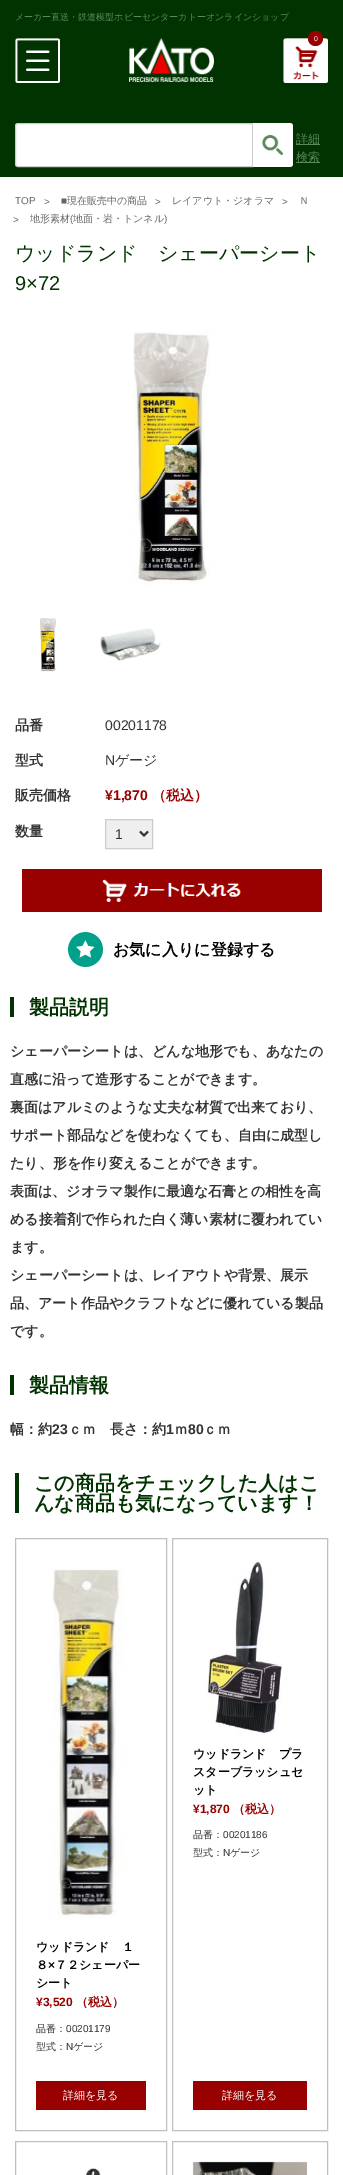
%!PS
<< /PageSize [343 2175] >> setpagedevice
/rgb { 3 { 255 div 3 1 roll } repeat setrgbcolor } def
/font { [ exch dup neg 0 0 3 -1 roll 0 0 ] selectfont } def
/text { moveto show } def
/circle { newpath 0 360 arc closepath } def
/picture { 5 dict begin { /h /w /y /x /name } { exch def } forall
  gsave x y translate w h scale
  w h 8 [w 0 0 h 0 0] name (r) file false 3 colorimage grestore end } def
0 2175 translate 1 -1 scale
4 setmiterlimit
0 51 0 rgb
0 0 343 2175 rectfill
(img_01.rgb) 15 38 45 45 picture
(img_02.rgb) 129 38 85 44 picture
(img_03.rgb) 283 38 45 45 picture
153 0 0 rgb
315.5 38.5 7.5 circle fill
255 255 255 rgb
18 123.5 moveto 234.5 0 rlineto 0 43 rlineto -234.5 0 rlineto -1.5 0 -2.5 -1 -2.5 -2.5 rcurveto 0 -38 rlineto 0 -1.5 1 -2.5 2.5 -2.5 rcurveto closepath gsave fill grestore
204 204 204 rgb
stroke
255 255 255 rgb
253 123 moveto 37 0 rlineto 1.5 0 3 1.5 3 3 rcurveto 0 38 rlineto 0 1.5 -1.5 3 -3 3 rcurveto -37 0 rlineto closepath fill
(img_04.rgb) 262 135 21 20 picture
91 137 91 rgb
296 144 24 1 rectfill
296 162 24 1 rectfill
255 255 255 rgb
0 177 343 1998 rectfill
(img_05.rgb) 133 331 77 254 picture
(img_06.rgb) 40 618 16 54 picture
(img_07.rgb) 100 628 61 33 picture
239 239 239 rgb
105.5 819.5 moveto 47 0 rlineto 0 29 rlineto -47 0 rlineto closepath gsave fill grestore
204 204 204 rgb
stroke
51 51 51 rgb
2 setlinewidth
140 831.5 moveto 4 4 rlineto 4 -4 rlineto stroke
(img_08.rgb) 22 869 300 43 picture
(img_09.rgb) 68 932 35 35 picture
0 51 0 rgb
10 997 4 20 rectfill
10 1375 4 20 rectfill
15 1473 4 40 rectfill
191 191 191 rgb
1 setlinewidth
15.5 1538.5 151 592 rectstroke
(img_10.rgb) 52 1568 72 350 picture
153 0 0 rgb
36 2081 110 29 rectfill
191 191 191 rgb
172.5 1538.5 155 592 rectstroke
(img_11.rgb) 206 1561 76 172 picture
153 0 0 rgb
193 2081 114 29 rectfill
191 191 191 rgb
15.5 2141.5 151 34 rectstroke
(img_12.rgb) 86 2168 15 7 picture
172.5 2141.5 155 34 rectstroke
(img_13.rgb) 192 2161 115 14 picture
/WenQuanYiZenHei-Medium 9 font
91 137 91 rgb
(メーカー直送・鉄道模型ホビーセンターカトーオンラインショップ) 15 20 text
/LiberationSans-Regular 7 font
255 255 255 rgb
(0) 314 41 text
/WenQuanYiZenHei-Medium 12 font
91 137 91 rgb
(詳細) 296 143 text
(検索) 296 161 text
/LiberationSans-Regular 10 font
102 102 102 rgb
(TOP) 15 204 text
(>) 44 205 text
(■) 61 204 text
/WenQuanYiZenHei-Medium 10 font
(現在販売中の商品) 67 204 text
/LiberationSans-Regular 10 font
(>) 155 205 text
/WenQuanYiZenHei-Medium 10 font
(レイアウト・ジオラマ) 172 204 text
/LiberationSans-Regular 10 font
(>) 282 205 text
/WenQuanYiZenHei-Medium 10 font
(Ｎ) 299 204 text
/LiberationSans-Regular 10 font
(>) 13 223 text
/WenQuanYiZenHei-Medium 10 font
(地形素材) 30 222 text
/LiberationSans-Regular 10 font
(\() 70 222 text
/WenQuanYiZenHei-Medium 10 font
(地面・岩・トンネル) 73 222 text
/LiberationSans-Regular 10 font
(\)) 164 222 text
/WenQuanYiZenHei-Medium 20 font
0 51 0 rgb
(ウッドランド　シェーパーシート) 15 260 text
/LiberationSans-Regular 20 font
(9×72) 15 290 text
/WenQuanYiZenHei-Bold 14 font
51 51 51 rgb
(品番) 15 730 text
/LiberationSans-Regular 14 font
(00201178) 105 730 text
/WenQuanYiZenHei-Bold 14 font
(型式) 15 765 text
/LiberationSans-Regular 14 font
(N) 105 765 text
/WenQuanYiZenHei-Medium 14 font
(ゲージ) 115 765 text
/WenQuanYiZenHei-Bold 14 font
(販売価格) 15 800 text
/LiberationSans-Bold 14 font
153 0 0 rgb
(¥1,870) 105 800 text
/WenQuanYiZenHei-Bold 14 font
(（税込）) 152 800 text
51 51 51 rgb
(数量) 15 836 text
/LiberationSans-Regular 14 font
(1) 115 839 text
/WenQuanYiZenHei-Bold 16 font
0 0 0 rgb
(お気に入りに登録する) 113 955 text
/WenQuanYiZenHei-Bold 20 font
0 51 0 rgb
(製品説明) 29 1014 text
/WenQuanYiZenHei-Bold 14 font
51 51 51 rgb
(シェーパーシートは、どんな地形でも、あなたの) 10 1056 text
(直感に沿って造形することができます。) 10 1084 text
(裏面はアルミのような丈夫な材質で出来ており、) 10 1112 text
(サポート部品などを使わなくても、自由に成型し) 10 1140 text
(たり、形を作り変えることができます。) 10 1168 text
(表面は、ジオラマ製作に最適な石膏との相性を高) 10 1196 text
(める接着剤で作られた白く薄い素材に覆われてい) 10 1224 text
(ます。) 10 1252 text
(シェーパーシートは、レイアウトや背景、展示) 10 1280 text
(品、アート作品やクラフトなどに優れている製品) 10 1308 text
(です。) 10 1336 text
/WenQuanYiZenHei-Bold 20 font
0 51 0 rgb
(製品情報) 29 1392 text
/WenQuanYiZenHei-Bold 14 font
51 51 51 rgb
(幅：約) 10 1434 text
/LiberationSans-Bold 14 font
(23) 52 1434 text
/WenQuanYiZenHei-Bold 14 font
(ｃｍ　長さ：約) 68 1434 text
/LiberationSans-Bold 14 font
(1) 166 1434 text
/WenQuanYiZenHei-Bold 14 font
(ｍ) 174 1434 text
/LiberationSans-Bold 14 font
(80) 188 1434 text
/WenQuanYiZenHei-Bold 14 font
(ｃｍ) 203 1434 text
/WenQuanYiZenHei-Bold 20 font
0 51 0 rgb
(この商品をチェックした人はこ) 34 1490 text
(んな商品も気になっています！) 34 1510 text
/WenQuanYiZenHei-Bold 12 font
0 0 0 rgb
(ウッドランド　１) 36 1951 text
(８) 36 1969 text
/LiberationSans-Bold 12 font
(×) 48 1969 text
/WenQuanYiZenHei-Bold 12 font
(７２シェーパー) 55 1969 text
(シート) 36 1987 text
/LiberationSans-Bold 12 font
153 0 0 rgb
(¥3,520) 36 2006 text
/WenQuanYiZenHei-Bold 12 font
(（税込）) 76 2006 text
/WenQuanYiZenHei-Medium 10 font
51 51 51 rgb
(品番：) 36 2032 text
/LiberationSans-Regular 10 font
(00201179) 66 2032 text
/WenQuanYiZenHei-Medium 10 font
(型式：) 36 2050 text
/LiberationSans-Regular 10 font
(N) 66 2050 text
/WenQuanYiZenHei-Medium 10 font
(ゲージ) 73 2050 text
/WenQuanYiZenHei-Medium 11 font
255 255 255 rgb
(詳細を見る) 63 2099 text
/WenQuanYiZenHei-Bold 12 font
0 0 0 rgb
(ウッドランド　プラ) 193 1758 text
(スターブラッシュセ) 193 1776 text
(ット) 193 1794 text
/LiberationSans-Bold 12 font
153 0 0 rgb
(¥1,870) 193 1813 text
/WenQuanYiZenHei-Bold 12 font
(（税込）) 233 1813 text
/WenQuanYiZenHei-Medium 10 font
51 51 51 rgb
(品番：) 193 1838 text
/LiberationSans-Regular 10 font
(00201186) 223 1838 text
/WenQuanYiZenHei-Medium 10 font
(型式：) 193 1856 text
/LiberationSans-Regular 10 font
(N) 223 1856 text
/WenQuanYiZenHei-Medium 10 font
(ゲージ) 230 1856 text
/WenQuanYiZenHei-Medium 11 font
255 255 255 rgb
(詳細を見る) 222 2099 text
showpage
